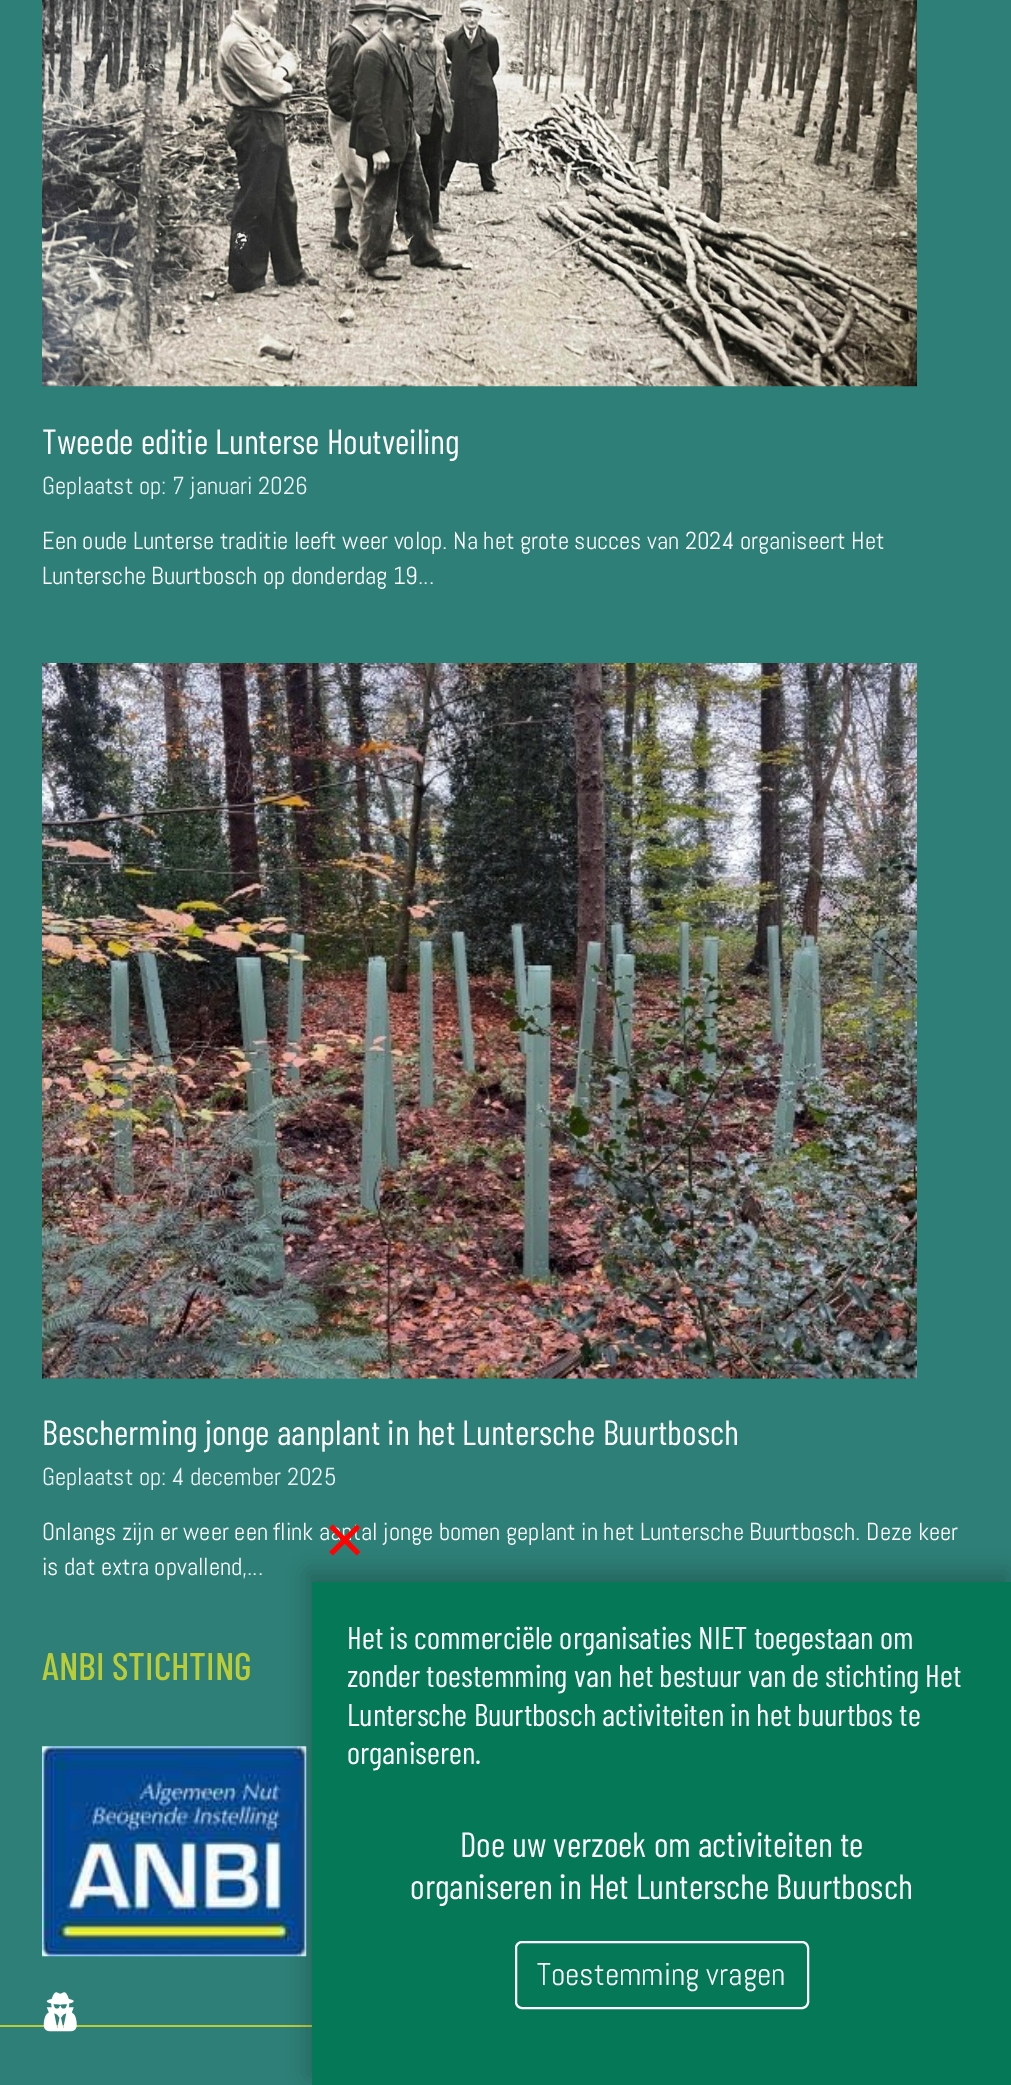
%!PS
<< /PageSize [1011 2085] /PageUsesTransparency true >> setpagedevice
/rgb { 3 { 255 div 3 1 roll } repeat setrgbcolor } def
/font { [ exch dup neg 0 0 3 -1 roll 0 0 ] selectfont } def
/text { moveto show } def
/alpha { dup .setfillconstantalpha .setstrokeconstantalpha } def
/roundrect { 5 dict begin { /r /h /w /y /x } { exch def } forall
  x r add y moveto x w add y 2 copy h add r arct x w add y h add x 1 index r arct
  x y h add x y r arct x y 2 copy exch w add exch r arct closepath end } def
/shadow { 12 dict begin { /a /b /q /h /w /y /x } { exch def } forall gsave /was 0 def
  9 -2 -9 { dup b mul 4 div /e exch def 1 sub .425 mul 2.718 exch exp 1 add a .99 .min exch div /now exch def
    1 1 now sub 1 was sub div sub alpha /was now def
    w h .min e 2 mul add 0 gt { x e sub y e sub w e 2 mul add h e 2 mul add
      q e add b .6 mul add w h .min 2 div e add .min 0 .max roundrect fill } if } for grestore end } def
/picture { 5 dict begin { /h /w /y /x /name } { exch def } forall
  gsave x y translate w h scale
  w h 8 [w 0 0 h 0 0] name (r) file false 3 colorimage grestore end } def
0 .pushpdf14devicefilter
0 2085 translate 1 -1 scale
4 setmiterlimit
45 127 119 rgb
0 0 1011 2085 rectfill
(img_01.rgb) 42 0 875 387 picture
(img_02.rgb) 42 663 875 716 picture
(img_03.rgb) 42 1746 265 211 picture
186 204 56 rgb
0 2025 312 2 rectfill
0 0 0 rgb
308 1572 700 504 0 10.5 0.2 shadow
(img_04.rgb) 329 1524 32 32 picture
4 120 87 rgb
312 1582 699 503 rectfill
255 255 255 rgb
2 setlinewidth
516 1942 292 66 6 roundrect stroke
(img_05.rgb) 43 1992 34 40 picture
/BarlowCondensed-Regular 35 font
(Tweede editie Lunterse Houtveiling) 42 454 text
/Abel-Regular 24.5 font
237 242 247 rgb
(Geplaatst op: 7 januari 2026) 42 494 text
255 255 255 rgb
(Een oude Lunterse traditie leeft weer volop. Na het grote succes van 2024 organiseert Het) 42 549 text
(Luntersche Buurtbosch op donderdag 19...) 42 584 text
/BarlowCondensed-Regular 35 font
(Bescherming jonge aanplant in het Luntersche Buurtbosch) 42 1445 text
/Abel-Regular 24.5 font
237 242 247 rgb
(Geplaatst op: 4 december 2025) 42 1485 text
255 255 255 rgb
(Onlangs zijn er weer een flink a) 42 1540 text
(al jonge bomen geplant in het Luntersche Buurtbosch. Deze keer) 361 1540 text
(is dat extra opvallend,...) 42 1575 text
/BarlowCondensed-Medium 38.5 font
186 204 56 rgb
(ANBI STICHTING) 42 1680 text
/BarlowCondensed-Regular 31.5 font
255 255 255 rgb
(Het is commerciële organisaties NIET toegestaan om) 347 1649 text
(zonder toestemming van het bestuur van de stichting Het) 347 1687 text
(Luntersche Buurtbosch activiteiten in het buurtbos te) 347 1726 text
(organiseren.) 347 1764 text
/BarlowCondensed-Regular 35 font
(Doe uw verzoek om activiteiten te) 460 1857 text
(organiseren in Het Luntersche Buurtbosch) 410 1899 text
/Abel-Regular 31.5 font
(Toestemming vragen) 537 1985 text
.poppdf14devicefilter showpage
